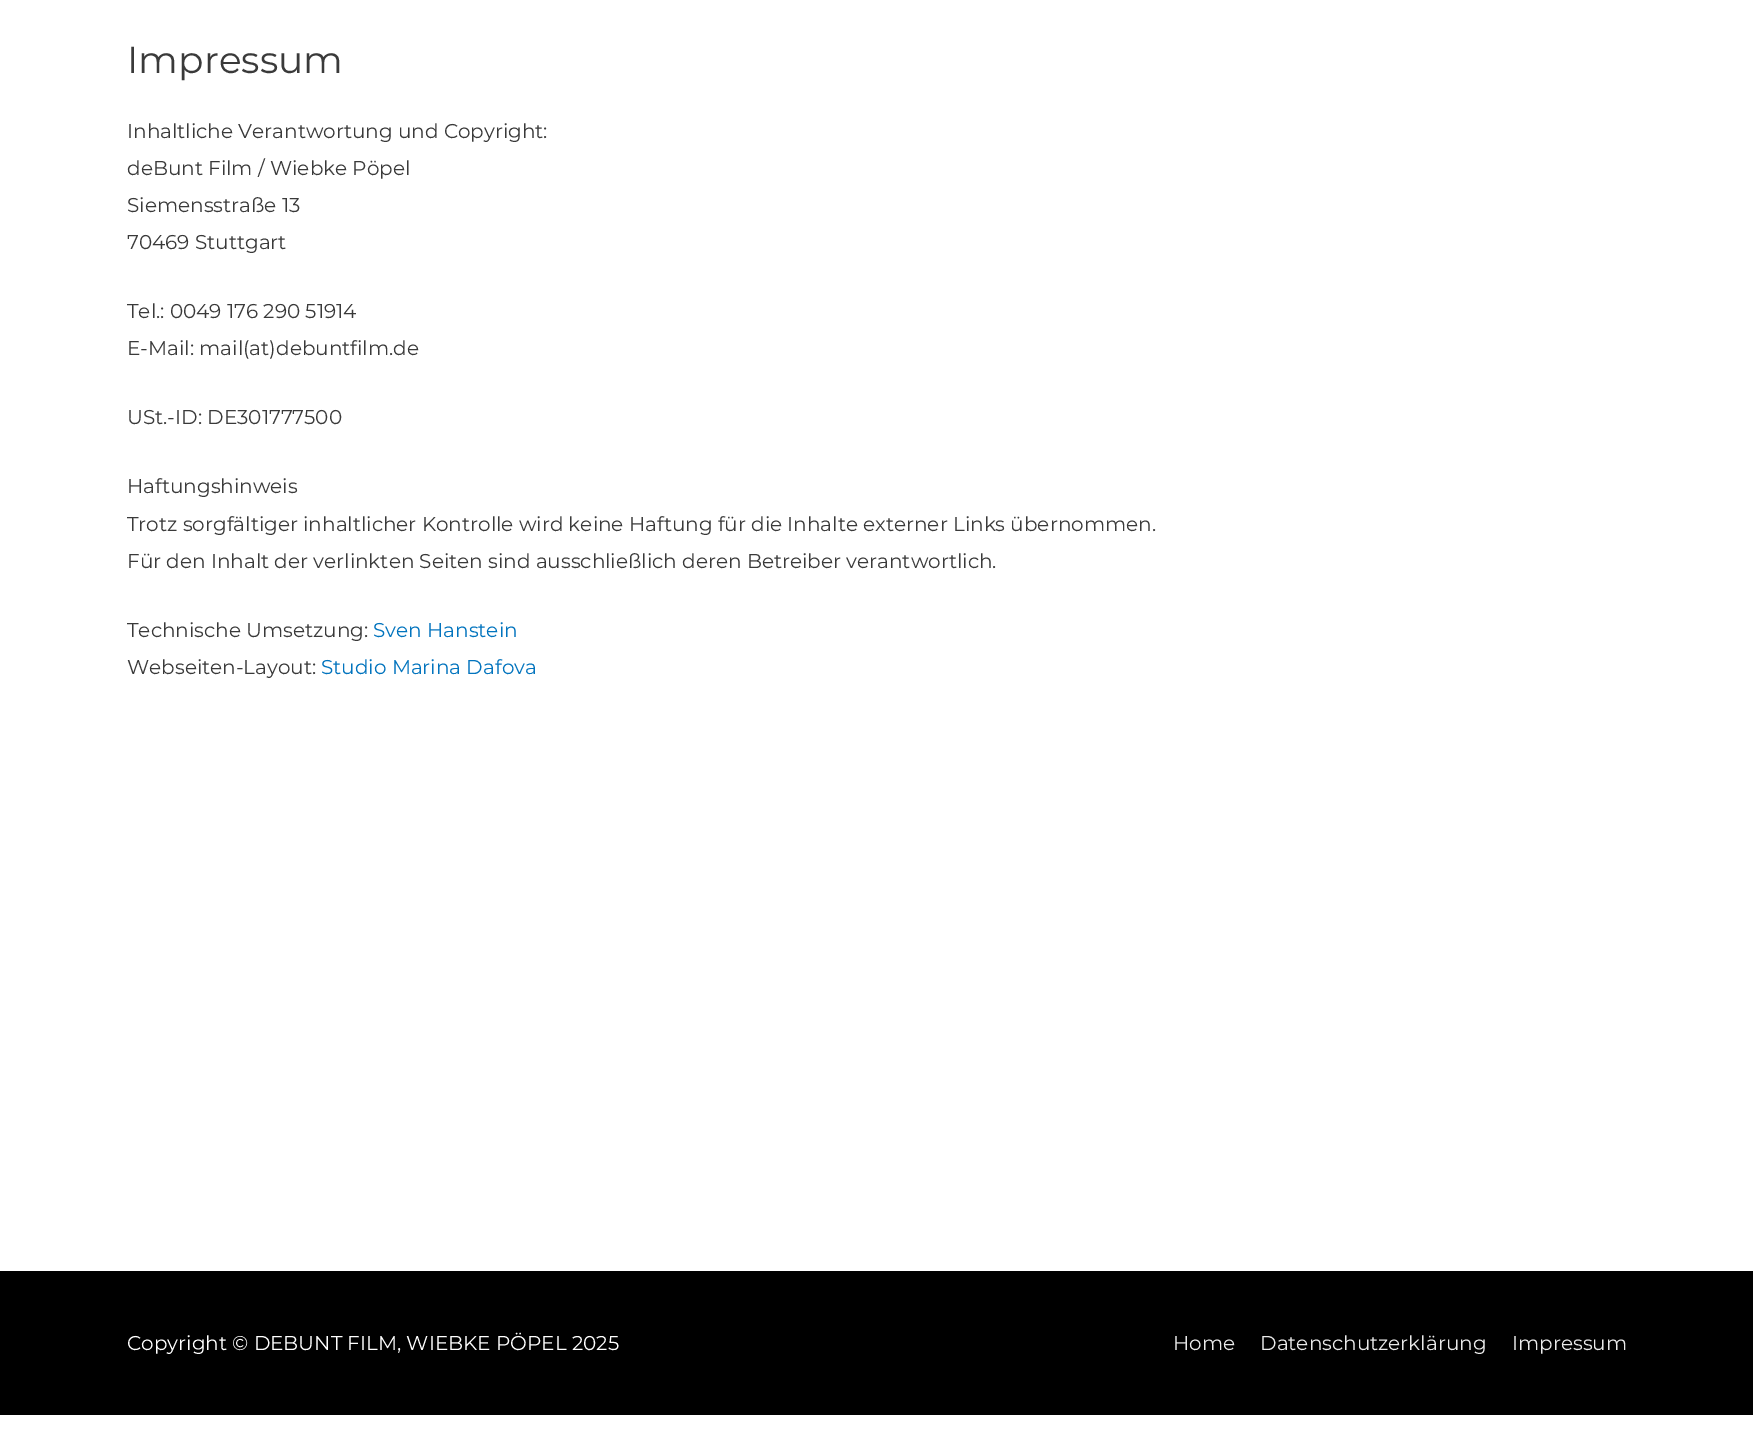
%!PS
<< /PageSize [1753 1453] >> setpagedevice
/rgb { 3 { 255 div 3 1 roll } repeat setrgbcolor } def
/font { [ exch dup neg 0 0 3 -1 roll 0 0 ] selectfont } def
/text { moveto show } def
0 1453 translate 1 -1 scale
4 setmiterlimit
255 255 255 rgb
0 0 1753 1453 rectfill
0 0 0 rgb
0 1271 1753 144 rectfill
/Montserrat-Regular 37.5 font
58 58 58 rgb
(Impressum) 127 73 text
/Montserrat-Regular 20 font
(Inhaltliche Verantwortung und Copyright:) 127 138 text
(deBunt Film / Wiebke Pöpel) 127 175 text
(Siemensstraße 13) 127 212 text
(70469 Stuttgart) 127 249 text
(Tel.: 0049 176 290 51914) 127 318 text
(E-Mail: mail\(at\)debuntfilm.de) 127 355 text
(USt.-ID: DE301777500) 127 424 text
(Haftungshinweis) 127 493 text
(Trotz sorgfältiger inhaltlicher Kontrolle wird keine Haftung für die Inhalte externer Links übernommen.) 127 531 text
(Für den Inhalt der verlinkten Seiten sind ausschließlich deren Betreiber verantwortlich.) 127 568 text
(Technische Umsetzung:) 127 637 text
2 116 190 rgb
(Sven Hanstein) 373 637 text
58 58 58 rgb
(Webseiten-Layout:) 127 674 text
2 116 190 rgb
(Studio Marina Dafova) 321 674 text
255 255 255 rgb
(Copyright © DEBUNT FILM, WIEBKE PÖPEL 2025) 127 1350 text
234 234 234 rgb
(Home) 1173 1350 text
(Datenschutzerklärung) 1260 1350 text
(Impressum) 1512 1350 text
showpage
